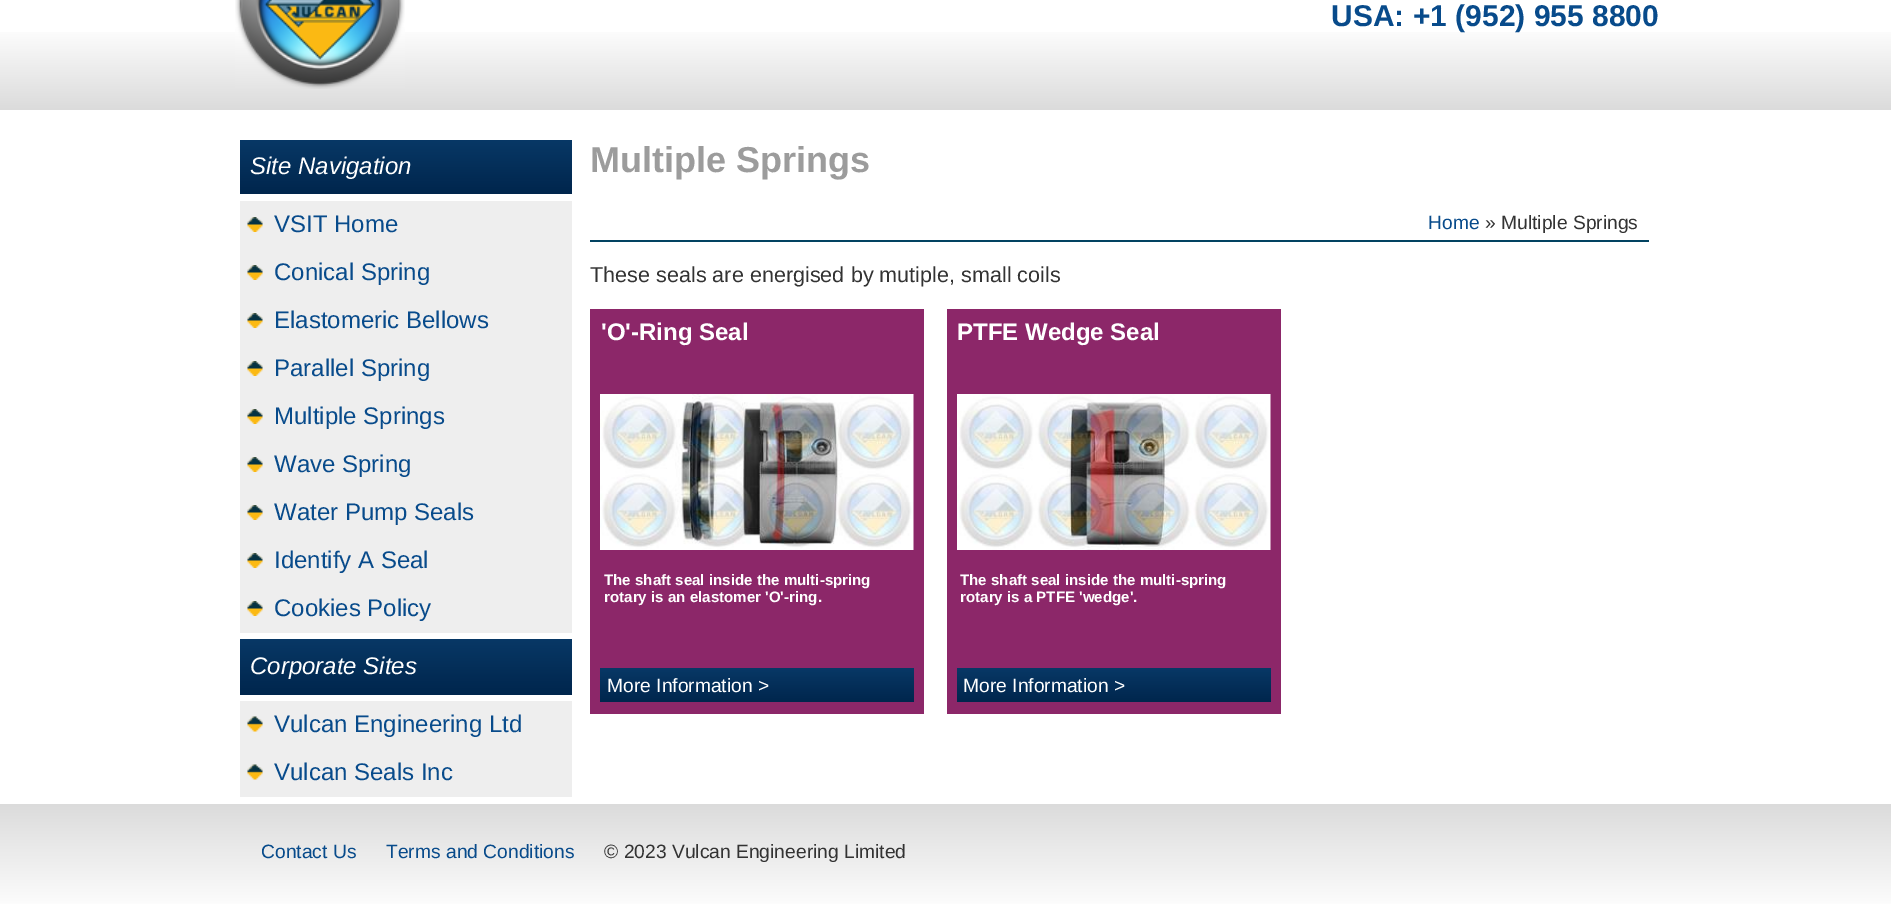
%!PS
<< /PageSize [1891 915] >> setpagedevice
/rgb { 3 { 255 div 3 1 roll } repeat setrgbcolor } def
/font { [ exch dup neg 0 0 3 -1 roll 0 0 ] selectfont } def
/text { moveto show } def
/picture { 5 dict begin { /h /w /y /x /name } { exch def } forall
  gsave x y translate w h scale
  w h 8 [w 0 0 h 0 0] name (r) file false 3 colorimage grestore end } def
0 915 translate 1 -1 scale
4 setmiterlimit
255 255 255 rgb
0 0 1891 915 rectfill
gsave 0 32 moveto 1891 0 rlineto 0 78 rlineto -1891 0 rlineto closepath clip newpath
<< /ShadingType 2 /ColorSpace /DeviceRGB /Coords [946 -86 946 110] /Extend [true true] /Function << /FunctionType 3 /Domain [0 1] /Functions [<< /FunctionType 2 /Domain [0 1] /C0 [1 1 1] /C1 [1 1 1] /N 1 >> << /FunctionType 2 /Domain [0 1] /C0 [1 1 1] /C1 [0.859 0.859 0.859] /N 1 >>] /Bounds [0.57] /Encode [0 1 0 1] >> >> shfill grestore
(img_01.rgb) 235 0 170 89 picture
gsave 240 140 moveto 332 0 rlineto 0 54 rlineto -332 0 rlineto closepath clip newpath
<< /ShadingType 2 /ColorSpace /DeviceRGB /Coords [406 139 406 194] /Extend [true true] /Function << /FunctionType 3 /Domain [0 1] /Functions [<< /FunctionType 2 /Domain [0 1] /C0 [0.031 0.22 0.4] /C1 [0 0.149 0.302] /N 1 >> << /FunctionType 2 /Domain [0 1] /C0 [0 0.149 0.302] /C1 [0 0.149 0.302] /N 1 >>] /Bounds [0.99] /Encode [0 1 0 1] >> >> shfill grestore
238 238 238 rgb
240 201 332 432 rectfill
(img_02.rgb) 247 217 16 15 picture
(img_02.rgb) 247 265 16 15 picture
(img_02.rgb) 247 313 16 15 picture
(img_02.rgb) 247 361 16 15 picture
(img_02.rgb) 247 409 16 15 picture
(img_02.rgb) 247 457 16 15 picture
(img_02.rgb) 247 505 16 15 picture
(img_02.rgb) 247 553 16 15 picture
(img_02.rgb) 247 601 16 15 picture
gsave 240 639 moveto 332 0 rlineto 0 56 rlineto -332 0 rlineto closepath clip newpath
<< /ShadingType 2 /ColorSpace /DeviceRGB /Coords [406 639 406 695] /Extend [true true] /Function << /FunctionType 3 /Domain [0 1] /Functions [<< /FunctionType 2 /Domain [0 1] /C0 [0.031 0.22 0.4] /C1 [0 0.149 0.302] /N 1 >> << /FunctionType 2 /Domain [0 1] /C0 [0 0.149 0.302] /C1 [0 0.149 0.302] /N 1 >>] /Bounds [0.99] /Encode [0 1 0 1] >> >> shfill grestore
240 701 332 96 rectfill
(img_03.rgb) 247 716 16 16 picture
(img_03.rgb) 247 764 16 16 picture
2 67 97 rgb
590 240 1059 2 rectfill
140 39 105 rgb
590 309 334 405 rectfill
(img_04.rgb) 600 394 314 156 picture
gsave 600 668 moveto 314 0 rlineto 0 34 rlineto -314 0 rlineto closepath clip newpath
<< /ShadingType 2 /ColorSpace /DeviceRGB /Coords [757 668 757 702] /Extend [true true] /Function << /FunctionType 3 /Domain [0 1] /Functions [<< /FunctionType 2 /Domain [0 1] /C0 [0.031 0.22 0.4] /C1 [0 0.149 0.302] /N 1 >> << /FunctionType 2 /Domain [0 1] /C0 [0 0.149 0.302] /C1 [0 0.149 0.302] /N 1 >>] /Bounds [0.99] /Encode [0 1 0 1] >> >> shfill grestore
947 309 334 405 rectfill
(img_05.rgb) 957 394 314 156 picture
gsave 957 668 moveto 314 0 rlineto 0 34 rlineto -314 0 rlineto closepath clip newpath
<< /ShadingType 2 /ColorSpace /DeviceRGB /Coords [1114 668 1114 702] /Extend [true true] /Function << /FunctionType 3 /Domain [0 1] /Functions [<< /FunctionType 2 /Domain [0 1] /C0 [0.031 0.22 0.4] /C1 [0 0.149 0.302] /N 1 >> << /FunctionType 2 /Domain [0 1] /C0 [0 0.149 0.302] /C1 [0 0.149 0.302] /N 1 >>] /Bounds [0.99] /Encode [0 1 0 1] >> >> shfill grestore
gsave 0 804 moveto 1891 0 rlineto 0 100 rlineto -1891 0 rlineto closepath clip newpath
<< /ShadingType 2 /ColorSpace /DeviceRGB /Coords [946 804 946 915] /Extend [true true] /Function << /FunctionType 3 /Domain [0 1] /Functions [<< /FunctionType 2 /Domain [0 1] /C0 [0.859 0.859 0.859] /C1 [1 1 1] /N 1 >> << /FunctionType 2 /Domain [0 1] /C0 [1 1 1] /C1 [1 1 1] /N 1 >>] /Bounds [0.97] /Encode [0 1 0 1] >> >> shfill grestore
/LiberationSans-Bold 30 font
8 75 139 rgb
(USA: +1 \(952\) 955 8800) 1331 26 text
/LiberationSans-Italic 24 font
255 255 255 rgb
(Site Navigation) 250 174 text
/LiberationSans-Regular 24 font
8 75 139 rgb
(VSIT Home) 274 232 text
(Conical Spring) 274 280 text
(Elastomeric Bellows) 274 328 text
(Parallel Spring) 274 376 text
(Multiple Springs) 274 424 text
(Wave Spring) 274 472 text
(Water Pump Seals) 274 520 text
(Identify A Seal) 274 568 text
(Cookies Policy) 274 616 text
/LiberationSans-Italic 24 font
255 255 255 rgb
(Corporate Sites) 250 674 text
/LiberationSans-Regular 24 font
8 75 139 rgb
(Vulcan Engineering Ltd) 274 732 text
(Vulcan Seals Inc) 274 780 text
/LiberationSans-Bold 36 font
156 156 156 rgb
(Multiple Springs) 590 172 text
/LiberationSans-Regular 19.25 font
8 75 139 rgb
(Home) 1428 229 text
51 51 51 rgb
(» Multiple Springs) 1485 229 text
/LiberationSans-Regular 21.6 font
(These seals are energised by mutiple, small coils) 590 282 text
/LiberationSans-Bold 24 font
255 255 255 rgb
('O'-Ring Seal) 601 340 text
/LiberationSans-Bold 15.1 font
(The shaft seal inside the multi-spring) 604 585 text
(rotary is an elastomer 'O'-ring.) 604 602 text
/LiberationSans-Regular 19.25 font
(More Information >) 607 692 text
/LiberationSans-Bold 24 font
(PTFE Wedge Seal) 957 340 text
/LiberationSans-Bold 15.1 font
(The shaft seal inside the multi-spring) 960 585 text
(rotary is a PTFE 'wedge'.) 960 602 text
/LiberationSans-Regular 19.25 font
(More Information >) 963 692 text
8 75 139 rgb
(Contact Us) 261 858 text
(Terms and Conditions) 386 858 text
51 51 51 rgb
(© 2023 Vulcan Engineering Limited) 604 858 text
showpage
